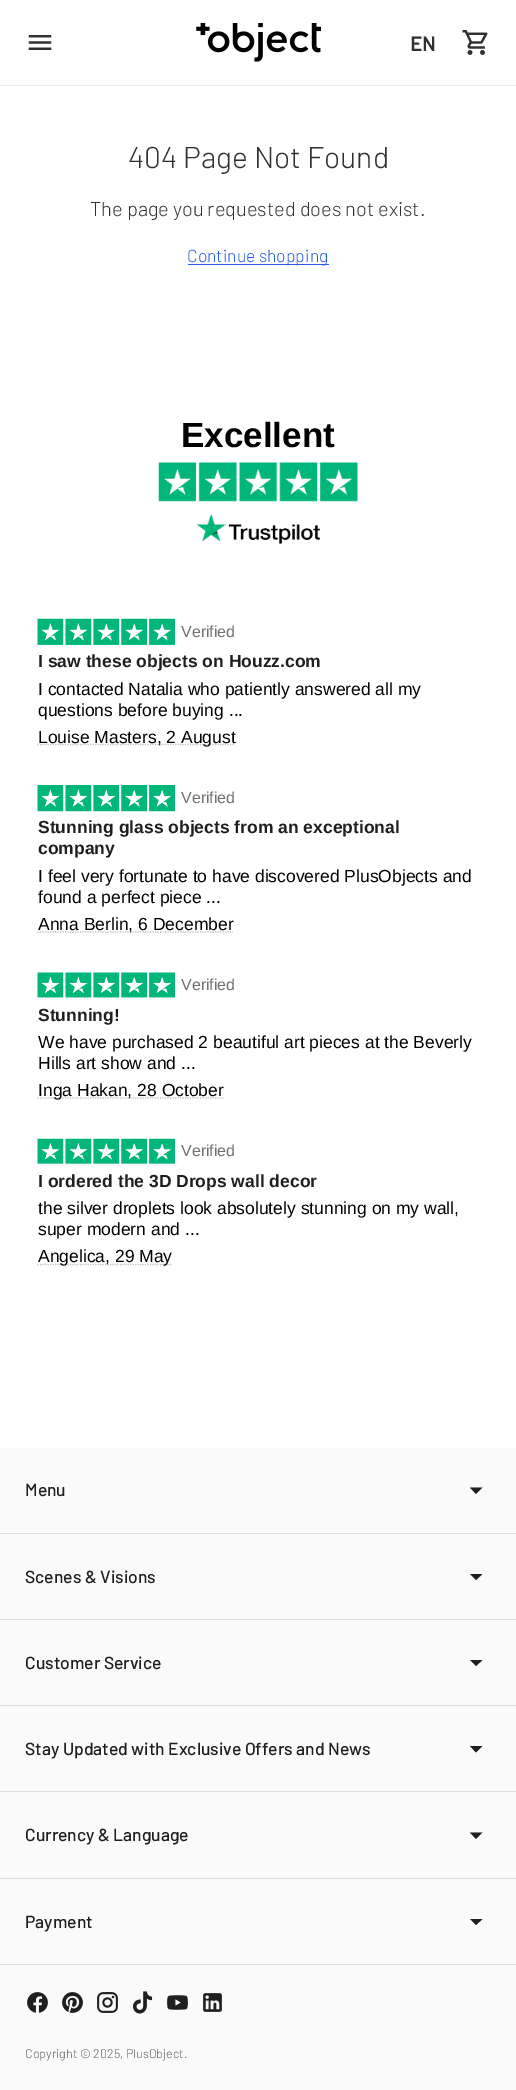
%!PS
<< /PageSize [516 2090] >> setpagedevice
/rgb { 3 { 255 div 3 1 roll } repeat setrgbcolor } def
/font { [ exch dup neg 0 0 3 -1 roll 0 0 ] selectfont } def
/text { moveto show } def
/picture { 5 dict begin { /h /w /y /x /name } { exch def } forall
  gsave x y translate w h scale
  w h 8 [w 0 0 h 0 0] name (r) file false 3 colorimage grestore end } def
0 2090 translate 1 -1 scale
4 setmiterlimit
255 255 255 rgb
0 0 516 2090 rectfill
234 234 234 rgb
0 85 516 1 rectfill
(img_01.rgb) 28 35 24 15 picture
(img_02.rgb) 196 23 125 39 picture
(img_03.rgb) 462 30 26 25 picture
42 93 223 rgb
188 264 141 1 rectfill
(img_04.rgb) 158 462 200 40 picture
(img_05.rgb) 196 513 124 31 picture
(img_06.rgb) 37 618 138 27 picture
192 192 192 rgb
1.2 setlinewidth
[1.25 1.25] 0 setdash
37.5 744.5 moveto 197.5 0 rlineto stroke
(img_07.rgb) 37 785 138 27 picture
37.5 932 moveto 195.5 0 rlineto stroke
(img_08.rgb) 37 972 138 26 picture
37.5 1098 moveto 186 0 rlineto stroke
(img_09.rgb) 37 1138 138 26 picture
37.5 1264.5 moveto 134.5 0 rlineto stroke
250 250 250 rgb
0 1448 516 642 rectfill
220 220 220 rgb
0 1533 516 1 rectfill
31 31 31 rgb
470 1487.5 moveto 6 6.5 rlineto 6.5 -6.5 rlineto closepath fill
220 220 220 rgb
0 1619 516 1 rectfill
31 31 31 rgb
470 1574 moveto 6 6 rlineto 6.5 -6 rlineto closepath fill
220 220 220 rgb
0 1705 516 1 rectfill
31 31 31 rgb
470 1660 moveto 6 6 rlineto 6.5 -6 rlineto closepath fill
220 220 220 rgb
0 1791 516 1 rectfill
31 31 31 rgb
470 1746 moveto 6 6.5 rlineto 6.5 -6.5 rlineto closepath fill
220 220 220 rgb
0 1878 516 1 rectfill
31 31 31 rgb
470 1832.5 moveto 6 6.5 rlineto 6.5 -6.5 rlineto closepath fill
220 220 220 rgb
0 1964 516 1 rectfill
31 31 31 rgb
470 1919 moveto 6 6 rlineto 6.5 -6 rlineto closepath fill
(img_10.rgb) 27 1992 21 21 picture
(img_11.rgb) 62 1992 21 21 picture
(img_12.rgb) 97 1992 21 21 picture
(img_13.rgb) 133 1991 20 23 picture
(img_14.rgb) 167 1995 21 15 picture
(img_15.rgb) 203 1993 19 19 picture
/Barlow-Bold 20 font
49 49 49 rgb
(EN) 410 51 text
/Barlow-Light 30 font
(404 Page Not Found) 128 168 text
/Barlow-Light 20 font
(The page you requested does not exist.) 90 216 text
/Barlow-Light 17.5 font
42 93 223 rgb
(Continue shopping) 187 262 text
/LiberationSans-Bold 35 font
0 0 0 rgb
(Excellent) 181 447 text
/LiberationSans-Regular 16 font
112 112 112 rgb
(Verified) 181 637 text
/LiberationSans-Bold 17.5 font
31 31 31 rgb
(I saw these objects on Houzz.com) 38 667 text
/LiberationSans-Regular 17.5 font
0 0 0 rgb
(I contacted Natalia who patiently answered all my) 38 695 text
(questions before buying ...) 38 716 text
(Louise Masters, 2 August) 38 743 text
/LiberationSans-Regular 16 font
112 112 112 rgb
(Verified) 181 803 text
/LiberationSans-Bold 17.5 font
31 31 31 rgb
(Stunning glass objects from an exceptional) 38 833 text
(company) 38 854 text
/LiberationSans-Regular 17.5 font
0 0 0 rgb
(I feel very fortunate to have discovered PlusObjects and) 38 882 text
(found a perfect piece ...) 38 903 text
(Anna Berlin, 6 December) 38 930 text
/LiberationSans-Regular 16 font
112 112 112 rgb
(Verified) 181 990 text
/LiberationSans-Bold 17.5 font
31 31 31 rgb
(Stunning!) 38 1021 text
/LiberationSans-Regular 17.5 font
0 0 0 rgb
(We have purchased 2 beautiful art pieces at the Beverly) 38 1048 text
(Hills art show and ...) 38 1069 text
(Inga Hakan, 28 October) 38 1096 text
/LiberationSans-Regular 16 font
112 112 112 rgb
(Verified) 181 1156 text
/LiberationSans-Bold 17.5 font
31 31 31 rgb
(I ordered the 3D Drops wall decor) 38 1187 text
/LiberationSans-Regular 17.5 font
0 0 0 rgb
(the silver droplets look absolutely stunning on my wall,) 38 1214 text
(super modern and ...) 38 1235 text
(Angelica, 29 May) 38 1262 text
/Barlow-Medium 17.5 font
31 31 31 rgb
(Menu) 25 1496 text
(Scenes & Visions) 25 1583 text
(Customer Service) 25 1669 text
(Stay Updated with Exclusive Offers and News) 25 1755 text
(Currency & Language) 25 1841 text
(Payment) 25 1928 text
/Barlow-Light 12.5 font
97 97 97 rgb
(Copyright © 2025, PlusObject.) 25 2058 text
showpage
